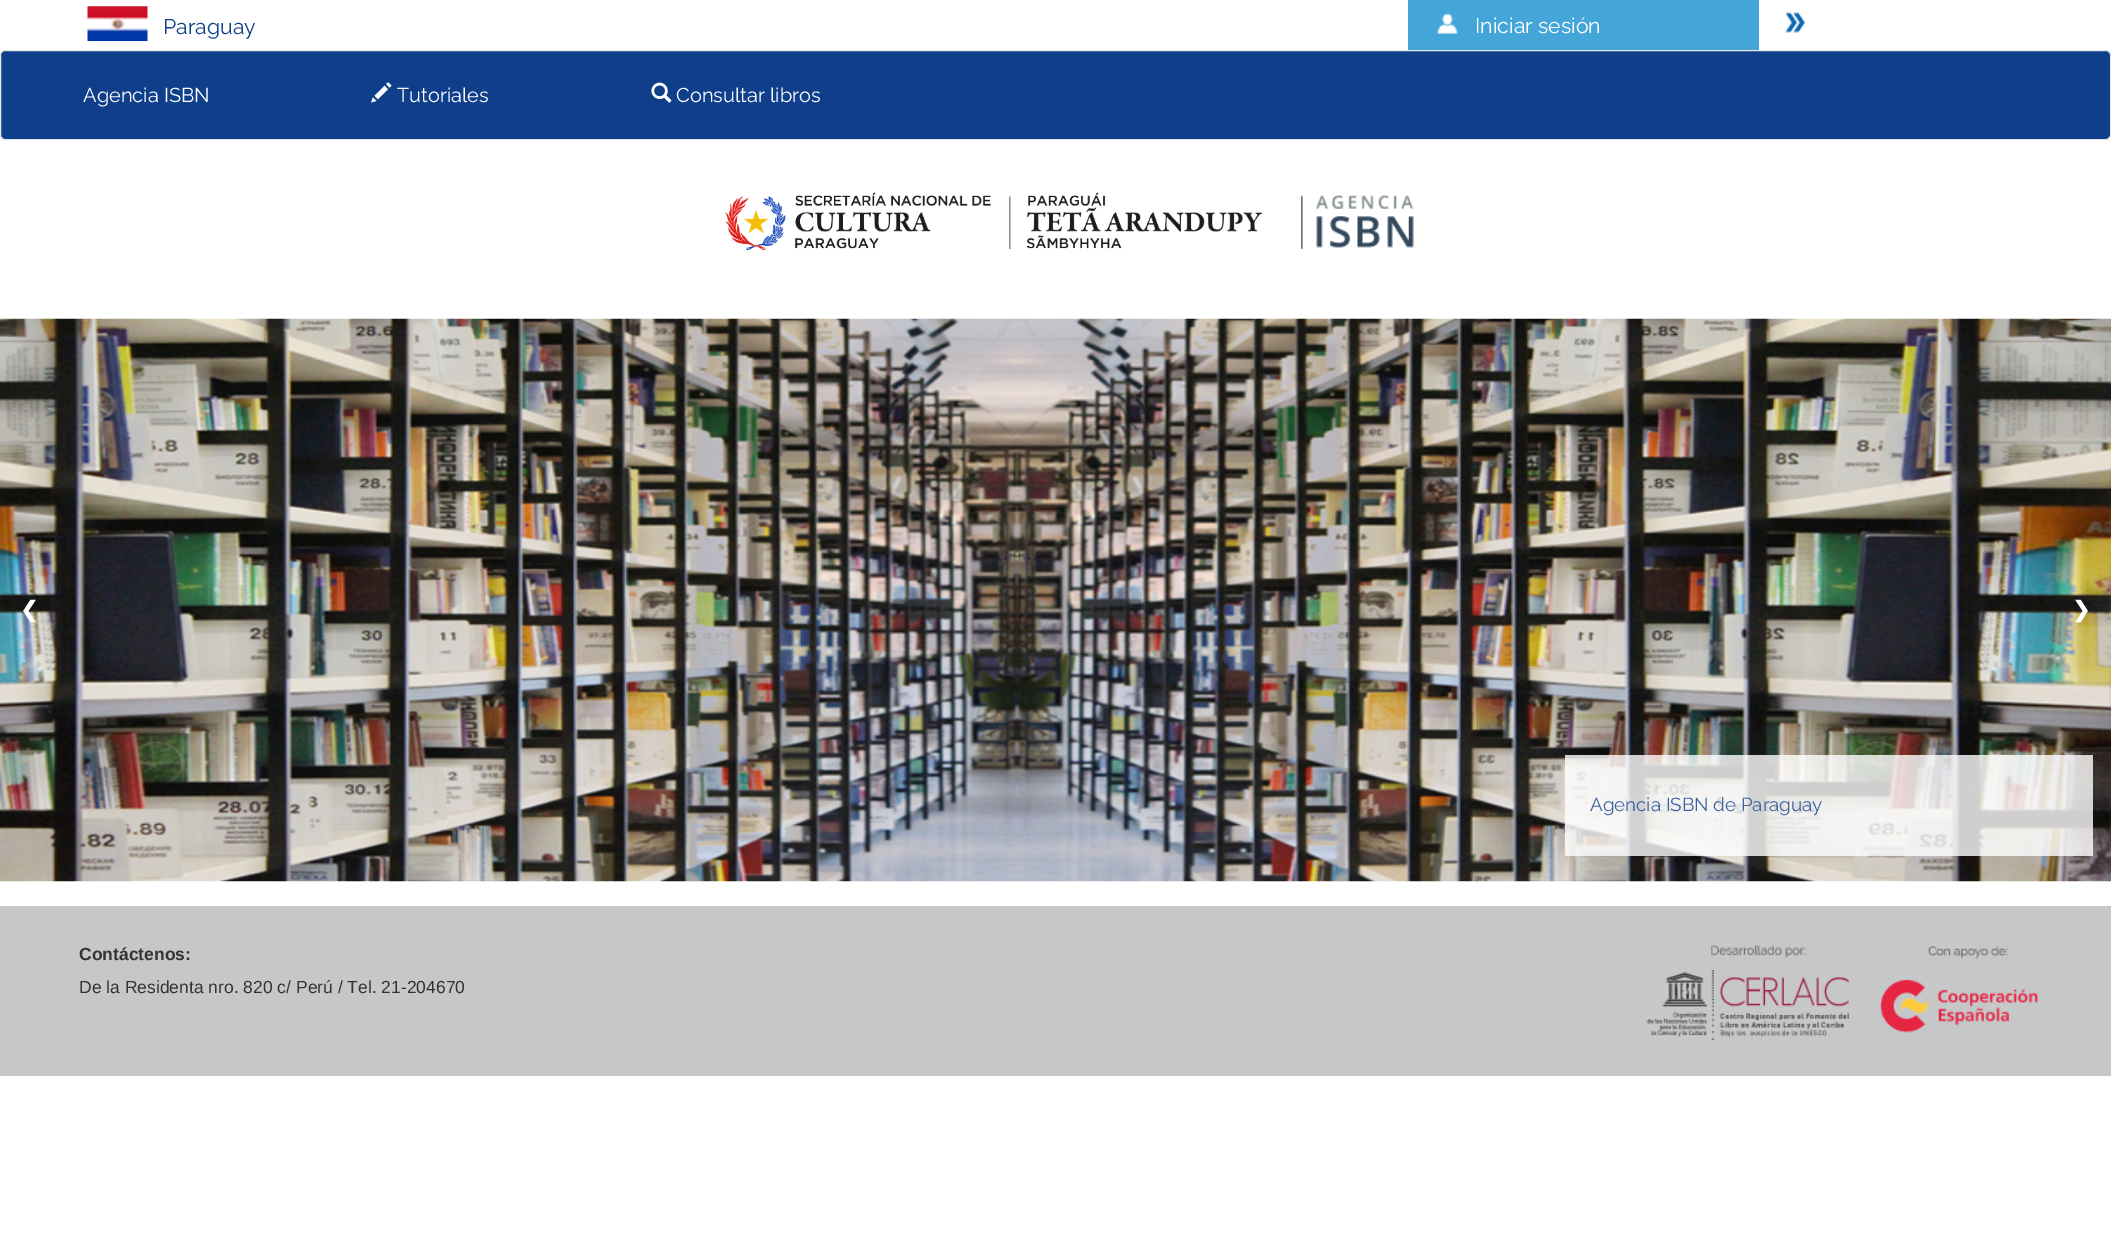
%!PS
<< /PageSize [2111 1251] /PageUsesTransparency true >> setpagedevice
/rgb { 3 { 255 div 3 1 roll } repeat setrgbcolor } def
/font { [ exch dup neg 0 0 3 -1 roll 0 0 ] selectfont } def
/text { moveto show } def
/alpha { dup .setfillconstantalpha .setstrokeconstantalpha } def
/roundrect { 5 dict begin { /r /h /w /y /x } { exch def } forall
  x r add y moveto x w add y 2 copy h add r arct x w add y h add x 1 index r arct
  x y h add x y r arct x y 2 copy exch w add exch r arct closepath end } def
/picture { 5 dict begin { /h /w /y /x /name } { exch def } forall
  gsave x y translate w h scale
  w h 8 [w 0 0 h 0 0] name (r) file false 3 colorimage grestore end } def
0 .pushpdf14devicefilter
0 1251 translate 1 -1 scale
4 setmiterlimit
255 255 255 rgb
0 0 2111 1251 rectfill
(img_01.rgb) 87 6 61 36 picture
68 165 217 rgb
1408 0 351 50 rectfill
(img_02.rgb) 1437 13 21 21 picture
(img_03.rgb) 1785 12 20 21 picture
15 62 139 rgb
0.5 50.5 2110 89 4.5 roundrect gsave fill grestore
231 231 231 rgb
stroke
(img_04.rgb) 371 82 21 21 picture
(img_05.rgb) 651 82 21 21 picture
(img_06.rgb) 725 192 538 59 picture
(img_07.rgb) 1301 195 113 54 picture
(img_08.rgb) 0 318 2111 564 picture
0.8 alpha
255 255 255 rgb
1565 755 528 101 rectfill
1 alpha
198 199 200 rgb
0 906 2111 170 rectfill
(img_09.rgb) 1646 945 392 96 picture
/Raleway-Thin 21.25 font
15 62 139 rgb
(Paraguay) 163 34 text
255 255 255 rgb
(Iniciar sesión) 1475 33 text
/Raleway-Thin 20 font
(Agencia ISBN) 83 102 text
(Tutoriales) 397 102 text
(Consultar libros) 676 102 text
/DejaVuSans-Bold 22 font
(❮) 20 617 text
(❯) 2072 617 text
/Raleway-Thin 18.75 font
59 97 158 rgb
(Agencia ISBN de Paraguay) 1590 811 text
/LiberationSans-Bold 17.5 font
51 51 51 rgb
(Contáctenos:) 79 960 text
/LiberationSans-Regular 17.5 font
(De la Residenta nro. 820 c/ Perú / Tel. 21-204670) 79 993 text
.poppdf14devicefilter showpage
